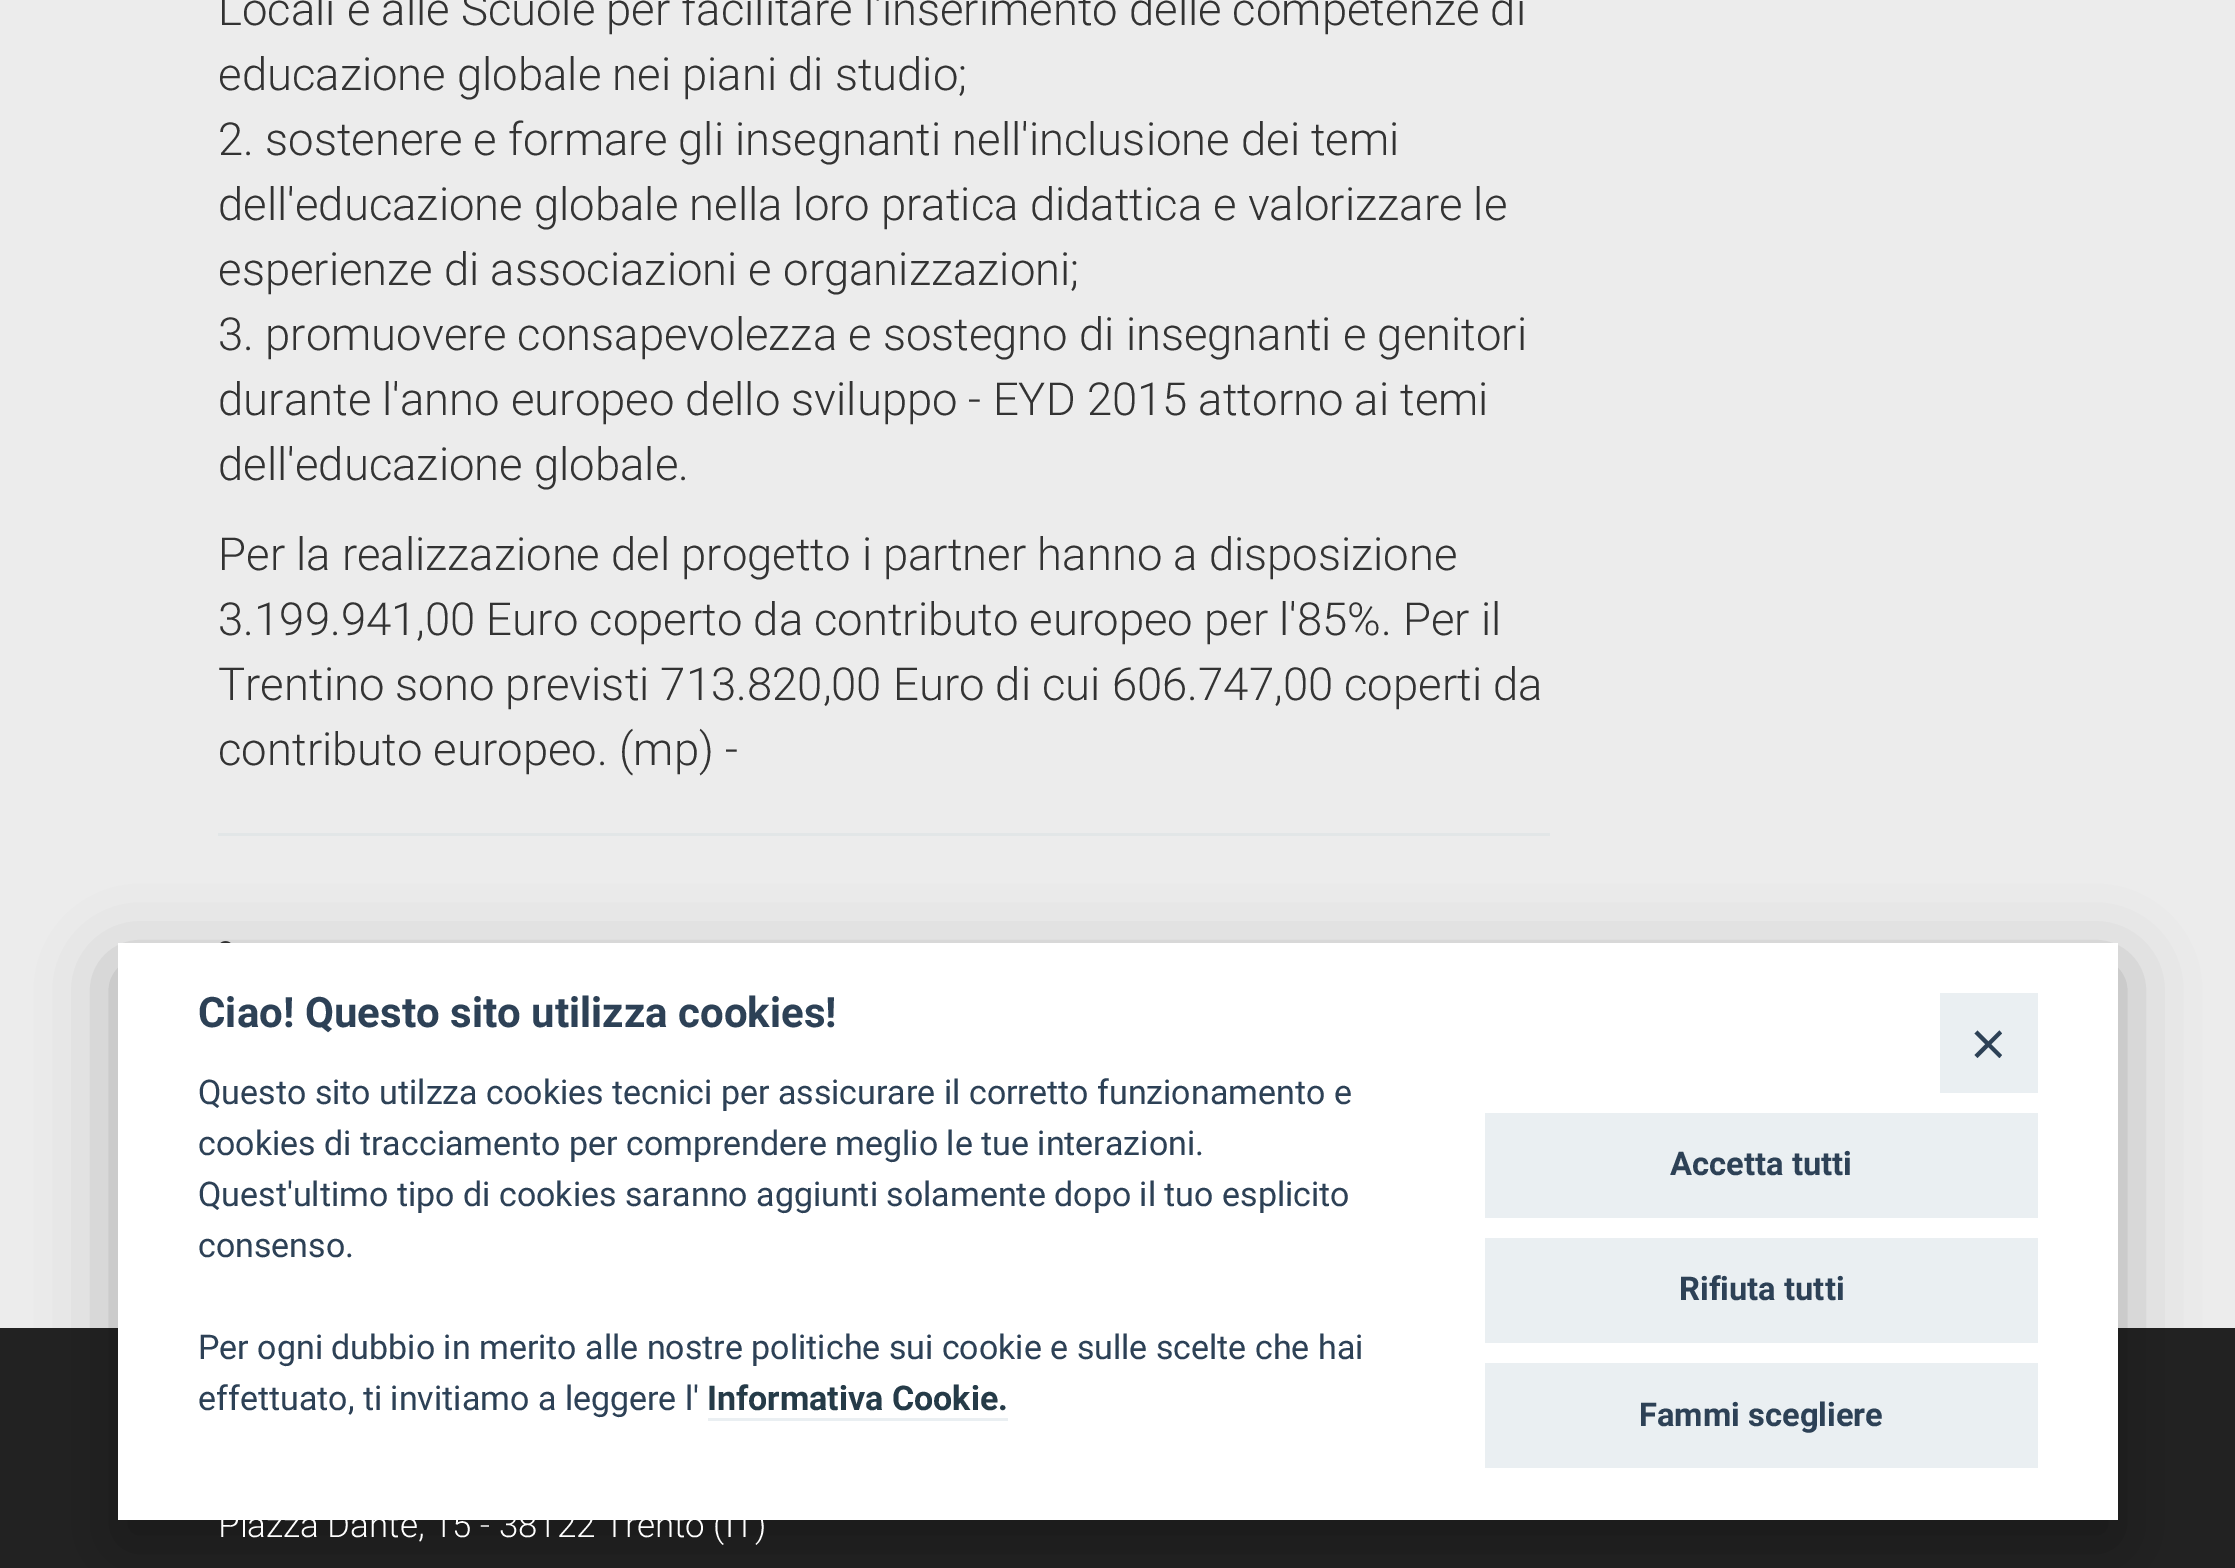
%!PS
<< /PageSize [2235 1568] /PageUsesTransparency true >> setpagedevice
/rgb { 3 { 255 div 3 1 roll } repeat setrgbcolor } def
/font { [ exch dup neg 0 0 3 -1 roll 0 0 ] selectfont } def
/text { moveto show } def
/alpha { dup .setfillconstantalpha .setstrokeconstantalpha } def
/roundrect { 5 dict begin { /r /h /w /y /x } { exch def } forall
  x r add y moveto x w add y 2 copy h add r arct x w add y h add x 1 index r arct
  x y h add x y r arct x y 2 copy exch w add exch r arct closepath end } def
/shadow { 12 dict begin { /a /b /q /h /w /y /x } { exch def } forall gsave /was 0 def
  9 -2 -9 { dup b mul 4 div /e exch def 1 sub .425 mul 2.718 exch exp 1 add a .99 .min exch div /now exch def
    1 1 now sub 1 was sub div sub alpha /was now def
    w h .min e 2 mul add 0 gt { x e sub y e sub w e 2 mul add h e 2 mul add
      q e add b .6 mul add w h .min 2 div e add .min 0 .max roundrect fill } if } for grestore end } def
/picture { 5 dict begin { /h /w /y /x /name } { exch def } forall
  gsave x y translate w h scale
  w h 8 [w 0 0 h 0 0] name (r) file false 3 colorimage grestore end } def
0 .pushpdf14devicefilter
0 1568 translate 1 -1 scale
4 setmiterlimit
236 236 236 rgb
0 0 2235 1568 rectfill
226 230 231 rgb
218 833 1332 3 rectfill
(img_01.rgb) 220 941 11 2 picture
34 34 34 rgb
0 1328 2235 240 rectfill
2 2 3 rgb
118 968 2000 577 0 37.5 0.28 shadow
255 255 255 rgb
118 943 2000 577 rectfill
234 239 242 rgb
708 1418 300 3 rectfill
1940 993 98 100 rectfill
45 65 86 rgb
1999.5 1030.5 moveto 2.5 3 rlineto -24.5 24.5 rlineto -3 -3 rlineto closepath fill
1974.5 1033.5 moveto 3 -3 rlineto 24.5 24.5 rlineto -2.5 3 rlineto closepath fill
234 239 242 rgb
1485 1113 553 105 rectfill
1485 1238 553 105 rectfill
1485 1363 553 105 rectfill
/Roboto-Light 45.5 font
51 51 51 rgb
(Locali e alle Scuole per facilitare l'inserimento delle competenze di) 218 25 text
(educazione globale nei piani di studio;) 218 90 text
(2. sostenere e formare gli insegnanti nell'inclusione dei temi) 218 155 text
(dell'educazione globale nella loro pratica didattica e valorizzare le) 218 220 text
(esperienze di associazioni e organizzazioni;) 218 285 text
(3. promuovere consapevolezza e sostegno di insegnanti e genitori) 218 350 text
(durante l'anno europeo dello sviluppo - EYD 2015 attorno ai temi) 218 415 text
(dell'educazione globale.) 218 480 text
(Per la realizzazione del progetto i partner hanno a disposizione) 218 570 text
(3.199.941,00 Euro coperto da contributo europeo per l'85%. Per il) 218 635 text
(Trentino sono previsti 713.820,00 Euro di cui 606.747,00 coperti da) 218 700 text
(contributo europeo. \(mp\) -) 218 765 text
/Roboto-Bold 42 font
45 65 86 rgb
(Ciao! Questo sito utilizza cookies!) 198 1027 text
/Roboto-Regular 34 font
(Questo sito utilzza cookies tecnici per assicurare il corretto funzionamento e) 198 1104 text
(cookies di tracciamento per comprendere meglio le tue interazioni.) 198 1155 text
(Quest'ultimo tipo di cookies saranno aggiunti solamente dopo il tuo esplicito) 198 1206 text
(consenso.) 198 1257 text
(Per ogni dubbio in merito alle nostre politiche sui cookie e sulle scelte che hai) 198 1359 text
(effettuato, ti invitiamo a leggere l') 198 1410 text
/Roboto-Bold 34 font
37 59 72 rgb
(Informativa Cookie.) 707 1410 text
/Roboto-Bold 32.75 font
45 65 86 rgb
(Accetta tutti) 1670 1175 text
(Rifiuta tutti) 1679 1300 text
(Fammi scegliere) 1639 1426 text
/Roboto-Light 35 font
255 255 255 rgb
(Piazza Dante, 15 - 38122 Trento \(IT\)) 218 1537 text
.poppdf14devicefilter showpage
